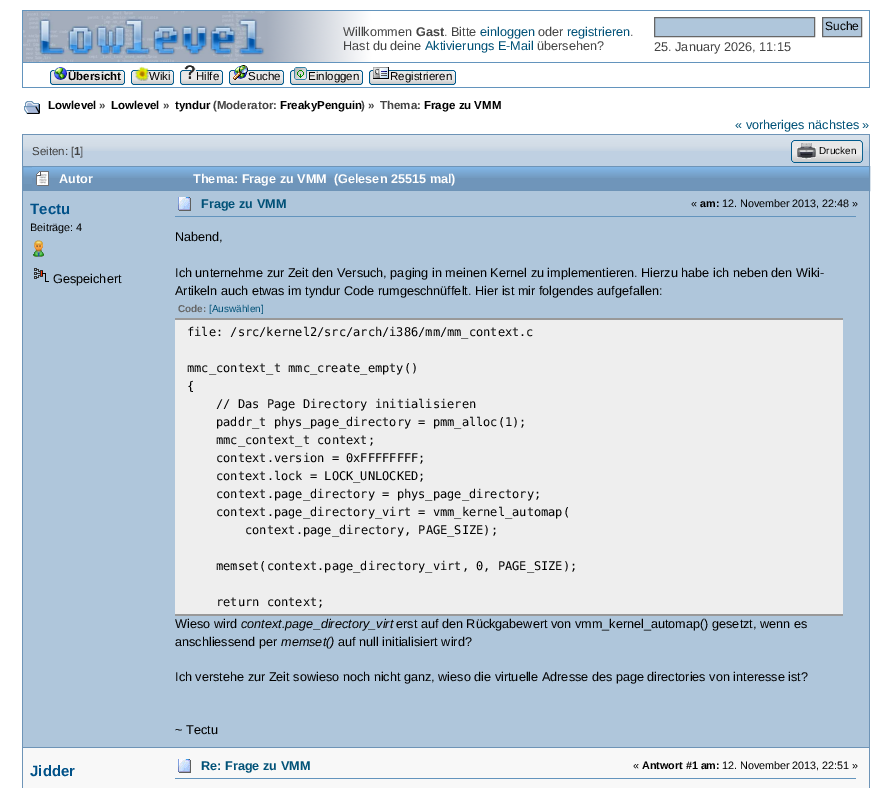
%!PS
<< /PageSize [892 788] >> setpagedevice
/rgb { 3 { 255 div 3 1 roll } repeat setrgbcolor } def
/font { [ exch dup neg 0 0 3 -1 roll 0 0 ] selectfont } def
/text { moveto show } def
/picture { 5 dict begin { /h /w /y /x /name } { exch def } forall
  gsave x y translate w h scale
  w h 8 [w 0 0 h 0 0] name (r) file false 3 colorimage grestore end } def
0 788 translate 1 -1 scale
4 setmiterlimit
255 255 255 rgb
0 0 892 788 rectfill
(img_01.rgb) 22 10 848 53 picture
(img_02.rgb) 869 11 1 52 picture
(img_03.rgb) 23 11 846 52 picture
175 198 219 rgb
654.5 17.5 moveto 160 0 rlineto 0 19 rlineto -160 0 rlineto closepath gsave fill grestore
102 102 102 rgb
stroke
175 198 219 rgb
822.5 17.5 moveto 39 0 rlineto 0 19 rlineto -39 0 rlineto closepath gsave fill grestore
102 102 102 rgb
stroke
99 148 189 rgb
869 63 1 25 rectfill
22 87 848 1 rectfill
22 63 1 25 rectfill
(img_04.rgb) 121 70 4 15 picture
(img_05.rgb) 50 70 71 15 picture
(img_06.rgb) 54 67 13 13 picture
(img_07.rgb) 170 70 4 15 picture
(img_08.rgb) 131 70 39 15 picture
(img_09.rgb) 135 66 14 15 picture
(img_04.rgb) 219 70 4 15 picture
(img_10.rgb) 180 70 39 15 picture
(img_11.rgb) 184 65 12 14 picture
(img_07.rgb) 280 70 4 15 picture
(img_12.rgb) 229 70 51 15 picture
(img_13.rgb) 233 65 15 15 picture
(img_04.rgb) 359 70 4 15 picture
(img_14.rgb) 290 70 69 15 picture
(img_15.rgb) 294 67 13 13 picture
(img_04.rgb) 452 70 4 15 picture
(img_16.rgb) 369 70 83 15 picture
(img_17.rgb) 373 67 16 12 picture
(img_18.rgb) 24 101 16 13 picture
191 208 226 rgb
23 151 846 15 rectfill
(img_19.rgb) 23 135 846 16 picture
110 148 183 rgb
22 134 848 1 rectfill
869 134 1 32 rectfill
22 134 1 32 rectfill
(img_20.rgb) 791 140 66 23 picture
(img_21.rgb) 857 140 6 23 picture
(img_22.rgb) 797 143 19 16 picture
23 184 9 6 rectfill
(img_23.rgb) 23 167 9 17 picture
22.5 166.5 847 24 rectstroke
111 149 186 rgb
32 178 837 12 rectfill
(img_24.rgb) 32 167 837 11 picture
(img_25.rgb) 36 171 13 15 picture
175 198 219 rgb
23 191 846 556 rectfill
110 148 183 rgb
869 191 1 6 rectfill
22 191 1 6 rectfill
869 197 1 591 rectfill
22 747 848 1 rectfill
22 197 1 591 rectfill
(img_26.rgb) 33 240 11 17 picture
(img_27.rgb) 34 268 15 14 picture
(img_28.rgb) 178 197 13 14 picture
99 148 189 rgb
175 216 681 1 rectfill
238 238 238 rgb
175 320 668 294 rectfill
153 153 153 rgb
175 318 668 2 rectfill
175 614 668 2 rectfill
248 248 248 rgb
23 748 846 40 rectfill
(img_29.rgb) 178 759 13 14 picture
99 148 189 rgb
175 778 681 1 rectfill
/LiberationSans-Regular 12.67 font
68 68 68 rgb
(Willkommen) 343 36 text
/LiberationSans-Bold 12.67 font
(Gast) 416 36 text
/LiberationSans-Regular 12.67 font
(. Bitte) 444 36 text
0 81 119 rgb
(einloggen) 480 36 text
68 68 68 rgb
(oder) 538 36 text
0 81 119 rgb
(registrieren) 567 36 text
68 68 68 rgb
(.) 630 36 text
(Hast du deine) 343 50 text
0 81 119 rgb
(Aktivierungs E-Mail) 425 50 text
68 68 68 rgb
(übersehen?) 537 50 text
/LiberationSans-Regular 12 font
0 0 0 rgb
(Suche) 825 30 text
/LiberationSans-Regular 12.67 font
68 68 68 rgb
(25. January 2026, 11:15) 654 51 text
/LiberationSans-Bold 11.5 font
0 0 0 rgb
(Übersicht) 68 80 text
/LiberationSans-Regular 11.5 font
(Wiki) 149 80 text
(Hilfe) 196 80 text
(Suche) 248 80 text
(Einloggen) 308 80 text
(Registrieren) 390 80 text
/LiberationSans-Bold 11.5 font
(Lowlevel) 48 109 text
68 68 68 rgb
(») 99 109 text
0 0 0 rgb
(Lowlevel) 111 109 text
68 68 68 rgb
(») 163 109 text
0 0 0 rgb
(tyndur) 175 109 text
68 68 68 rgb
(\(Moderator:) 213 109 text
0 0 0 rgb
(FreakyPenguin) 280 109 text
68 68 68 rgb
(\) ») 361 109 text
(Thema:) 380 109 text
0 0 0 rgb
(Frage zu VMM) 424 109 text
/LiberationSans-Regular 12.67 font
0 81 119 rgb
(« vorheriges nächstes ») 735 129 text
/LiberationSans-Regular 11.5 font
68 68 68 rgb
(Seiten: [) 32 155 text
/LiberationSans-Bold 11.5 font
(1) 74 155 text
/LiberationSans-Regular 11.5 font
(]) 80 155 text
/LiberationSans-Regular 10 font
0 0 0 rgb
(Drucken) 819 154 text
/LiberationSans-Bold 12.67 font
255 255 255 rgb
(Autor) 59 183 text
(Thema: Frage zu VMM  \(Gelesen 25515 mal\)) 193 183 text
/LiberationSans-Bold 15 font
0 81 136 rgb
(Tectu) 30 214 text
/LiberationSans-Regular 10.75 font
0 0 0 rgb
(Beiträge: 4) 30 231 text
/LiberationSans-Regular 12.67 font
(Gespeichert) 53 283 text
/LiberationSans-Bold 12.67 font
0 81 119 rgb
(Frage zu VMM) 201 208 text
/LiberationSans-Regular 10.75 font
0 0 0 rgb
(«) 691 207 text
/LiberationSans-Bold 10.75 font
(am:) 700 207 text
/LiberationSans-Regular 10.75 font
(12. November 2013, 22:48 ») 722 207 text
/LiberationSans-Regular 12.67 font
(Nabend,) 175 241 text
(Ich unternehme zur Zeit den Versuch, paging in meinen Kernel zu implementieren. Hierzu habe ich neben den Wiki-) 175 277 text
(Artikeln auch etwas im tyndur Code rumgeschnüffelt. Hier ist mir folgendes aufgefallen:) 175 295 text
/LiberationSans-Bold 10 font
102 102 102 rgb
(Code:) 178 312 text
/LiberationSans-Regular 10 font
0 81 119 rgb
([Auswählen]) 209 312 text
/DejaVuSansMono-Regular 12 font
0 0 0 rgb
(file: /src/kernel2/src/arch/i386/mm/mm_context.c) 187 336 text
(mmc_context_t mmc_create_empty\(\)) 187 372 text
({) 187 390 text
(// Das Page Directory initialisieren) 216 408 text
(paddr_t phys_page_directory = pmm_alloc\(1\);) 216 426 text
(mmc_context_t context;) 216 444 text
(context.version = 0xFFFFFFFF;) 216 462 text
(context.lock = LOCK_UNLOCKED;) 216 480 text
(context.page_directory = phys_page_directory;) 216 498 text
(context.page_directory_virt = vmm_kernel_automap\() 216 516 text
(context.page_directory, PAGE_SIZE\);) 245 534 text
(memset\(context.page_directory_virt, 0, PAGE_SIZE\);) 216 570 text
(return context;) 216 606 text
/LiberationSans-Regular 12.67 font
(Wieso wird) 175 628 text
/LiberationSans-Italic 12.67 font
(context.page_directory_virt) 241 628 text
/LiberationSans-Regular 12.67 font
(erst auf den Rückgabewert von vmm_kernel_automap\(\) gesetzt, wenn es) 396 628 text
(anschliessend per) 175 646 text
/LiberationSans-Italic 12.67 font
(memset\(\)) 281 646 text
/LiberationSans-Regular 12.67 font
(auf null initialisiert wird?) 338 646 text
(Ich verstehe zur Zeit sowieso noch nicht ganz, wieso die virtuelle Adresse des page directories von interesse ist?) 175 681 text
(~ Tectu) 175 734 text
/LiberationSans-Bold 15 font
0 81 136 rgb
(Jidder) 30 776 text
/LiberationSans-Bold 12.67 font
0 81 119 rgb
(Re: Frage zu VMM) 201 770 text
/LiberationSans-Regular 10.75 font
0 0 0 rgb
(«) 633 769 text
/LiberationSans-Bold 10.75 font
(Antwort #1 am:) 642 769 text
/LiberationSans-Regular 10.75 font
(12. November 2013, 22:51 ») 722 769 text
showpage
